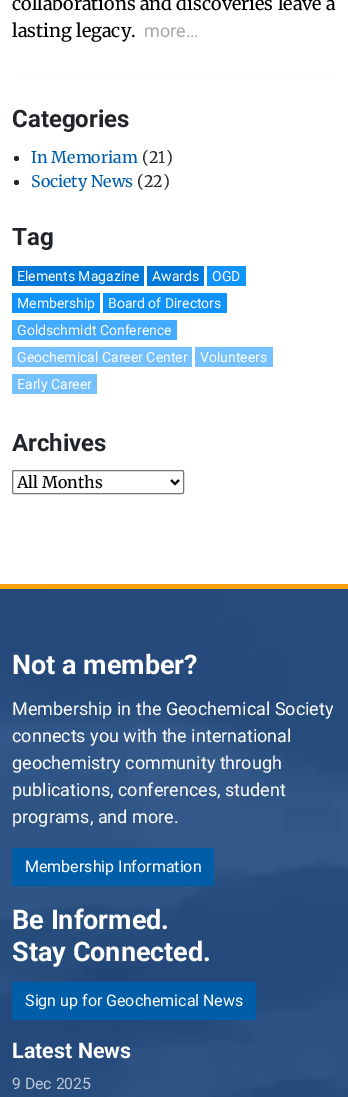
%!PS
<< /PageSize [348 1097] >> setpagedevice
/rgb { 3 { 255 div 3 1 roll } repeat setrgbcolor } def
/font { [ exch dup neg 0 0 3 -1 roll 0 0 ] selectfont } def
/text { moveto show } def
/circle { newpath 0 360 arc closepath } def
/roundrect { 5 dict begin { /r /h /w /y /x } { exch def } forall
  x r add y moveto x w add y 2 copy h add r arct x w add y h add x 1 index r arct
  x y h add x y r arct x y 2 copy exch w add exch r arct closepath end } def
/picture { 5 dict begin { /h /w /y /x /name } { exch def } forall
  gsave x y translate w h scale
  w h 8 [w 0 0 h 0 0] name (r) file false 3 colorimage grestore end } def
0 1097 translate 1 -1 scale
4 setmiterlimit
255 255 255 rgb
0 0 348 1097 rectfill
249 249 249 rgb
[1 1] 0 setdash
12 74.5 moveto 324 0 rlineto stroke
33 37 41 rgb
16.5 158.5 2.5 circle fill
16.5 182.5 2.5 circle fill
0 121 219 rgb
12 266 132 20 rectfill
147 266 57 20 rectfill
15 147 255 rgb
207 266 39 20 rectfill
12 293 88 20 rectfill
103 293 124 20 rectfill
66 170 255 rgb
12 320 165 20 rectfill
117 193 255 rgb
12 347 180 20 rectfill
195 347 78 20 rectfill
12 374 85 20 rectfill
118 118 118 rgb
[] 0 setdash
12.5 470.5 171 23 1.5 roundrect stroke
0 0 0 rgb
2 setlinewidth
171 480 moveto 4 4 rlineto 4 -4 rlineto stroke
(img_01.rgb) 0 589 348 508 picture
250 160 15 rgb
0 584 348 5 rectfill
0 93 168 rgb
12 848 202 38 rectfill
12 982 244 38 rectfill
/Merriweather-Light 18 font
0 0 0 rgb
(collaborations and discoveries leave a) 12 10 text
(lasting legacy.) 12 37 text
/Roboto-Regular 18 font
169 169 169 rgb
(more…) 144 37 text
/Roboto-Bold 24 font
33 37 41 rgb
(Categories) 12 127 text
/Merriweather-Light 16 font
0 93 168 rgb
(In Memoriam) 31 163 text
33 37 41 rgb
(\(21\)) 142 163 text
0 93 168 rgb
(Society News) 31 187 text
33 37 41 rgb
(\(22\)) 137 187 text
/Roboto-Bold 24 font
(Tag) 12 245 text
/Roboto-Regular 14 font
255 255 255 rgb
(Elements Magazine) 17 281 text
(Awards) 152 281 text
(OGD) 212 281 text
(Membership) 17 308 text
(Board of Directors) 108 308 text
(Goldschmidt Conference) 17 335 text
(Geochemical Career Center) 17 362 text
(Volunteers) 200 362 text
(Early Career) 17 389 text
/Roboto-Bold 24 font
33 37 41 rgb
(Archives) 12 451 text
/Merriweather-Light 16 font
0 0 0 rgb
(All Months) 17 488 text
/Roboto-Bold 27 font
255 255 255 rgb
(Not a member?) 12 674 text
/Roboto-Regular 18 font
(Membership in the Geochemical Society) 12 715 text
(connects you with the international) 12 742 text
(geochemistry community through) 12 769 text
(publications, conferences, student) 12 796 text
(programs, and more.) 12 823 text
/Roboto-Regular 16 font
(Membership Information) 25 872 text
/Roboto-Bold 27 font
(Be Informed.) 12 929 text
(Stay Connected.) 12 961 text
/Roboto-Regular 16 font
(Sign up for Geochemical News) 25 1006 text
/Roboto-Bold 21.5 font
(Latest News) 12 1058 text
/Roboto-Regular 15.75 font
190 201 216 rgb
(9 Dec 2025) 12 1089 text
showpage
